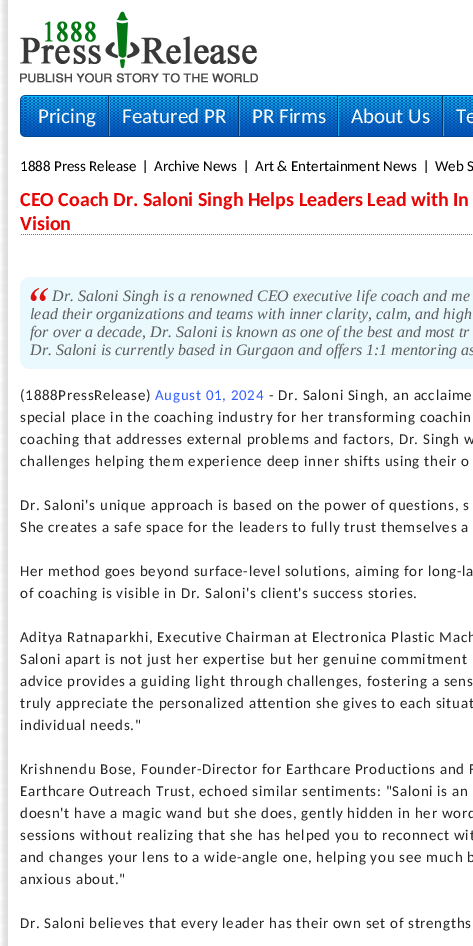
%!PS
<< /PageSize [473 946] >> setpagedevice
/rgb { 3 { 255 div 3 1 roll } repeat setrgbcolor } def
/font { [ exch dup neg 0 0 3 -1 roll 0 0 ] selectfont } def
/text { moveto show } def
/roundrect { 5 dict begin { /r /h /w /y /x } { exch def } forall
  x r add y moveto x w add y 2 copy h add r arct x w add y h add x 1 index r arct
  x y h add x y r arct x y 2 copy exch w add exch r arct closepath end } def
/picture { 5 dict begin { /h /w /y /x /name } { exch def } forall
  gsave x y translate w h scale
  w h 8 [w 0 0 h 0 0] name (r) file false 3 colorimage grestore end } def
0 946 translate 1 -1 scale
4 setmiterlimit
255 255 255 rgb
0 0 473 946 rectfill
(img_01.rgb) 0 0 8 946 picture
(img_02.rgb) 1 0 472 95 picture
(img_03.rgb) 20 11 238 72 picture
(img_04.rgb) 1 95 472 52 picture
(img_05.rgb) 25 95 448 42 picture
(img_06.rgb) 20 95 5 42 picture
(img_07.rgb) 108 95 2 42 picture
(img_07.rgb) 238 95 2 42 picture
(img_07.rgb) 337 95 2 42 picture
(img_07.rgb) 442 95 2 42 picture
(img_08.rgb) 1 147 472 10 picture
(img_09.rgb) 1 157 472 789 picture
(img_10.rgb) 144 160 2 13 picture
(img_10.rgb) 245 160 2 13 picture
(img_10.rgb) 425 160 2 13 picture
(img_11.rgb) 20 234 453 1 picture
234 249 254 rgb
20 277 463 92 10 roundrect fill
(img_12.rgb) 30 288 18 13 picture
/Carlito-Regular 21 font
252 252 252 rgb
(Pricing) 38 123 text
(Featured PR) 122 123 text
(PR Firms) 252 123 text
(About Us) 351 123 text
(Te) 456 123 text
/Carlito-Regular 15 font
0 0 0 rgb
(1888 Press Release) 20 171 text
(Archive News) 154 171 text
(Art & Entertainment News) 255 171 text
(Web S) 435 171 text
/Carlito-Bold 20 font
231 5 5 rgb
(CEO Coach Dr. Saloni Singh Helps Leaders Lead with In) 20 206 text
(Vision) 20 230 text
/LiberationSerif-Italic 16 font
93 93 93 rgb
(Dr. Saloni Singh is a renowned CEO executive life coach and me) 52 301 text
(lead their organizations and teams with inner clarity, calm, and high) 30 319 text
(for over a decade, Dr. Saloni is known as one of the best and most tr) 30 337 text
(Dr. Saloni is currently based in Gurgaon and offers 1:1 mentoring as) 30 355 text
/Carlito-Regular 15 font
39 38 38 rgb
20 400 moveto 0.7 0 (\(1888PressRelease\)) ashow
51 96 251 rgb
155 400 moveto 0.7 0 (August 01, 2024) ashow
39 38 38 rgb
269 400 moveto 0.7 0 (- Dr. Saloni Singh, an acclaime) ashow
20 422 moveto 0.7 0 (special place in the coaching industry for her transforming coachin) ashow
20 444 moveto 0.7 0 (coaching that addresses external problems and factors, Dr. Singh w) ashow
20 466 moveto 0.7 0 (challenges helping them experience deep inner shifts using their o) ashow
20 510 moveto 0.7 0 (Dr. Saloni's unique approach is based on the power of questions, s) ashow
20 532 moveto 0.7 0 (She creates a safe space for the leaders to fully trust themselves a) ashow
20 576 moveto 0.7 0 (Her method goes beyond surface-level solutions, aiming for long-la) ashow
20 598 moveto 0.7 0 (of coaching is visible in Dr. Saloni's client's success stories.) ashow
20 642 moveto 0.7 0 (Aditya Ratnaparkhi, Executive Chairman at Electronica Plastic Mach) ashow
20 664 moveto 0.7 0 (Saloni apart is not just her expertise but her genuine commitment) ashow
20 686 moveto 0.7 0 (advice provides a guiding light through challenges, fostering a sens) ashow
20 708 moveto 0.7 0 (truly appreciate the personalized attention she gives to each situat) ashow
20 730 moveto 0.7 0 (individual needs.") ashow
20 774 moveto 0.7 0 (Krishnendu Bose, Founder-Director for Earthcare Productions and F) ashow
20 796 moveto 0.7 0 (Earthcare Outreach Trust, echoed similar sentiments: "Saloni is an) ashow
20 818 moveto 0.7 0 (doesn't have a magic wand but she does, gently hidden in her word) ashow
20 840 moveto 0.7 0 (sessions without realizing that she has helped you to reconnect wit) ashow
20 862 moveto 0.7 0 (and changes your lens to a wide-angle one, helping you see much b) ashow
20 884 moveto 0.7 0 (anxious about.") ashow
20 928 moveto 0.7 0 (Dr. Saloni believes that every leader has their own set of strengths) ashow
showpage
